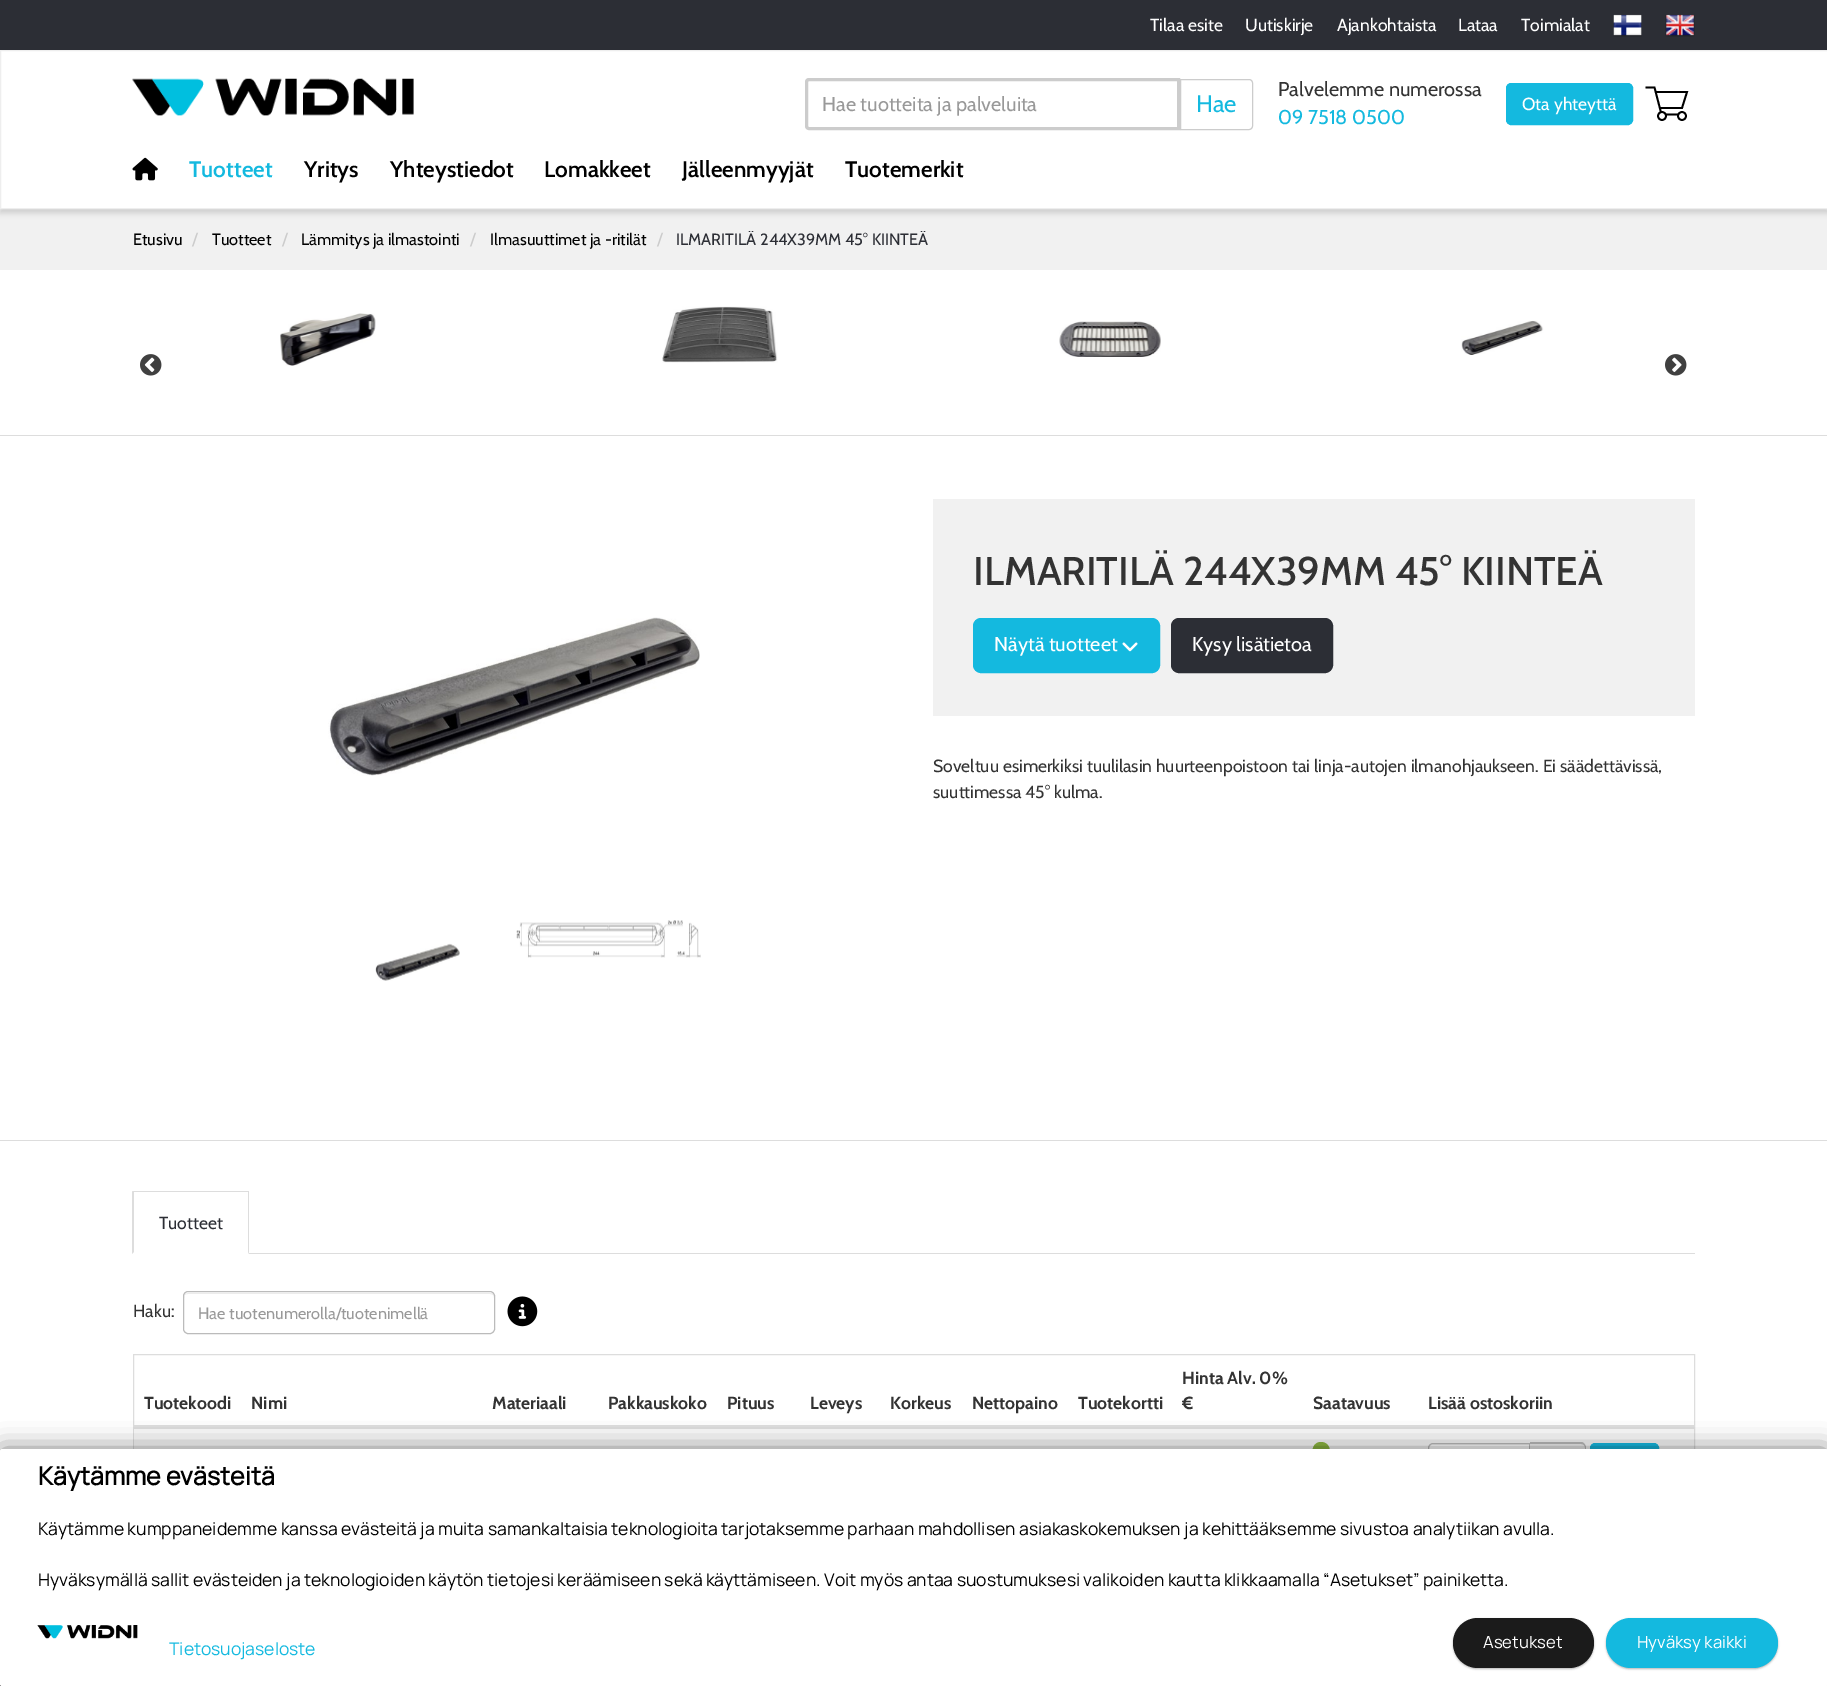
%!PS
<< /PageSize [1827 1686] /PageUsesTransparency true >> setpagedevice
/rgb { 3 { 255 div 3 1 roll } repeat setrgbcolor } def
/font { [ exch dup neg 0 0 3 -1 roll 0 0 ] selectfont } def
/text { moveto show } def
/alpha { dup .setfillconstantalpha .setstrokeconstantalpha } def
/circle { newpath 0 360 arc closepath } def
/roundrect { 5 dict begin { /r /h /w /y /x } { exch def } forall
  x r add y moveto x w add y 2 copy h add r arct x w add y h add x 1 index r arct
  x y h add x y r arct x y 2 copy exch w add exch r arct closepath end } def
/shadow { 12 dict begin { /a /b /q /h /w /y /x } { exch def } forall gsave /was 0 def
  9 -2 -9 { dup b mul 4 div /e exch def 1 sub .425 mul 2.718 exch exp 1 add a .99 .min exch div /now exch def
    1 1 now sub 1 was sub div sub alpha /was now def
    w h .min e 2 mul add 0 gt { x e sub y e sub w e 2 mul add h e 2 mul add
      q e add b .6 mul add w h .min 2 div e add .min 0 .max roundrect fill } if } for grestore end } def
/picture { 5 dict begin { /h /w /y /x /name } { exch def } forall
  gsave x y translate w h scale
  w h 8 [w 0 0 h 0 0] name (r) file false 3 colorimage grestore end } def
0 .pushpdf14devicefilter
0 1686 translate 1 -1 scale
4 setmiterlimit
255 255 255 rgb
0 0 1827 1686 rectfill
241 241 241 rgb
0 209 1827 61 rectfill
0 0 0 rgb
0 4 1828 209 0 3 0.15 shadow
44 46 53 rgb
0 0 1827 50 rectfill
(img_01.rgb) 1613 14 29 23 picture
(img_02.rgb) 1665 14 30 23 picture
255 255 255 rgb
0.5 50.5 moveto 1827 0 rlineto 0 158 rlineto -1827 0 rlineto closepath gsave fill grestore
238 238 238 rgb
stroke
(img_03.rgb) 132 78 282 38 picture
236 236 236 rgb
809 81 moveto 369 0 rlineto 0 -1 rlineto -369 0 rlineto -1 0 -1 1 -1 2 rcurveto closepath fill
204 204 204 rgb
3 setlinewidth
809 79.5 moveto 369.5 0 rlineto 0 49 rlineto -369.5 0 rlineto -1.5 0 -2.5 -1 -2.5 -2.5 rcurveto 0 -44 rlineto 0 -1.5 1 -2.5 2.5 -2.5 rcurveto closepath stroke
1 setlinewidth
1180.5 79.5 moveto 68.5 0 rlineto 2 0 3.5 1.5 3.5 3.5 rcurveto 0 43 rlineto 0 2 -1.5 3.5 -3.5 3.5 rcurveto -68.5 0 rlineto closepath stroke
20 185 223 rgb
1506.5 83.5 126 41 4.5 roundrect gsave fill grestore
stroke
0 0 0 rgb
1.8 setlinewidth
1645.5 87.5 moveto 9 0 rlineto 6.5 25 rlineto stroke
1662 116 4 circle stroke
1682 116 4 circle stroke
1666 114.5 moveto 12 0 rlineto 1659.5 108 moveto 22.5 0 rlineto 5 -16 rlineto -31.5 0 rlineto stroke
(img_04.rgb) 132 157 26 24 picture
221 221 221 rgb
0 435 1827 1 rectfill
(img_05.rgb) 140 354 22 22 picture
(img_06.rgb) 280 313 96 53 picture
(img_07.rgb) 662 306 116 57 picture
(img_08.rgb) 1059 321 102 36 picture
(img_09.rgb) 1461 320 83 35 picture
(img_10.rgb) 1665 354 22 22 picture
0 1140 1827 1 rectfill
(img_11.rgb) 328 617 372 159 picture
(img_12.rgb) 516 920 185 38 picture
(img_13.rgb) 375 943 85 38 picture
241 241 241 rgb
933 499 762 217 rectfill
20 185 223 rgb
973.5 618.5 186 54 7.5 roundrect gsave fill grestore
1 setlinewidth
stroke
(img_14.rgb) 1122 642 16 10 picture
44 46 53 rgb
1171.5 618.5 161 54 7.5 roundrect gsave fill grestore
stroke
221 221 221 rgb
249 1253 1446 1 rectfill
133 1191 116 1 rectfill
249 1191 moveto 0 63 rlineto -1 -2 rlineto 0 -60 rlineto closepath fill
132 1254 moveto 0 -63 rlineto 2 1 rlineto 0 60 rlineto closepath fill
236 236 236 rgb
188 1294 moveto 302 0 rlineto 2 0 4 1 4 4 rcurveto 0 -3 -1 -5 -4 -5 rcurveto -302 0 rlineto -3 1 rlineto -1 1 -1 3 -1 4 rcurveto 0 -3 1 -4 4 -4 rcurveto closepath fill
187 187 187 rgb
183.5 1291.5 311 42 4.5 roundrect stroke
(img_15.rgb) 507 1296 31 31 picture
221 221 221 rgb
133.5 1354.5 1561 145 rectstroke
134 1425 934 3 rectfill
1068 1425 235 3 rectfill
1303 1425 391 3 rectfill
249 249 249 rgb
134 1429 1560 20 rectfill
221 221 221 rgb
134 1428 1560 1 rectfill
140 183 64 rgb
1321 1459.5 moveto 12 0 11.5 -17.5 0 -17.5 rcurveto -11 0 -11.5 17.5 0 17.5 rcurveto closepath fill
255 255 255 rgb
1433 1443 moveto 97 0 rlineto 0 42 rlineto -97 0 rlineto -3 0 -5 -2 -5 -5 rcurveto 0 -32 rlineto 0 -3 2 -5 5 -5 rcurveto closepath fill
236 236 236 rgb
1432 1445 moveto 97 0 rlineto 0 -1 rlineto -96 0 rlineto -2 0 -4 2 -4 4 rcurveto 0 1 rlineto 0 -2 1 -4 3 -4 rcurveto closepath fill
187 187 187 rgb
1433 1443.5 moveto 96.5 0 rlineto 0 41 rlineto -96.5 0 rlineto -2.5 0 -4.5 -2 -4.5 -4.5 rcurveto 0 -32 rlineto 0 -2.5 2 -4.5 4.5 -4.5 rcurveto closepath stroke
238 238 238 rgb
1530 1443 moveto 51 0 rlineto 3 0 5 2 5 5 rcurveto 0 32 rlineto 0 3 -2 5 -5 5 rcurveto -51 0 rlineto closepath fill
187 187 187 rgb
1530 1442 moveto 51 0 rlineto 3 0 5 3 5 6 rcurveto 0 32 rlineto 0 3 -2 5 -5 5 rcurveto -51 0 rlineto closepath 1530 1444 moveto 51 0 rlineto 2 0 4 1 4 4 rcurveto 0 32 rlineto 0 2 -2 4 -4 4 rcurveto -51 0 rlineto closepath eofill
20 185 223 rgb
1590.5 1443.5 68 41 4.5 roundrect gsave fill grestore
stroke
27 27 27 rgb
0 1683 1827 3 rectfill
0 0 0 rgb
0 1449 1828 237 2.5 12.5 0.5 shadow
255 255 255 rgb
0 1449 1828 237 2.5 roundrect fill
0 1599 moveto 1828 0 rlineto 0 84.5 rlineto 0 1.5 -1 2.5 -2.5 2.5 rcurveto -1823 0 rlineto -1.5 0 -2.5 -1 -2.5 -2.5 rcurveto closepath fill
(img_16.rgb) 37 1625 101 14 picture
0 0 0 rgb
1453 1619 141 50 25 1 0.3 shadow
27 27 27 rgb
1453 1618 141 50 25 roundrect fill
0 0 0 rgb
1606 1619 172 50 25 1 0.3 shadow
20 185 223 rgb
1606 1618 172 50 25 roundrect fill
/Cabin-Regular 17.5 font
255 255 255 rgb
(Tilaa esite) 1150 31 text
(Uutiskirje) 1245 31 text
(Ajankohtaista) 1337 31 text
(Lataa) 1458 31 text
(Toimialat) 1521 31 text
/Cabin-Regular 20 font
153 153 153 rgb
(Hae tuotteita ja palveluita) 822 111 text
/Cabin-Regular 24 font
20 185 223 rgb
(Hae) 1196 112 text
/Cabin-Regular 20 font
51 51 51 rgb
(Palvelemme numerossa) 1278 96 text
20 185 223 rgb
(09 7518 0500) 1278 124 text
/Cabin-Regular 17.5 font
255 255 255 rgb
(Ota yhteyttä) 1522 110 text
/Cabin-SemiBold 22.5 font
20 185 223 rgb
(Tuotteet) 189 177 text
0 0 0 rgb
(Yritys) 304 177 text
(Yhteystiedot) 390 177 text
(Lomakkeet) 544 177 text
(Jälleenmyyjät) 682 177 text
(Tuotemerkit) 845 177 text
/Cabin-Regular 16.25 font
(Etusivu) 133 245 text
/Cabin-Regular 17.5 font
204 204 204 rgb
(/) 192 245 text
/Cabin-Regular 16.25 font
0 0 0 rgb
(Tuotteet) 212 245 text
/Cabin-Regular 17.5 font
204 204 204 rgb
(/) 282 245 text
/Cabin-Regular 16.25 font
0 0 0 rgb
(Lämmitys ja ilmastointi) 301 245 text
/Cabin-Regular 17.5 font
204 204 204 rgb
(/) 470 245 text
/Cabin-Regular 16.25 font
0 0 0 rgb
(Ilmasuuttimet ja -ritilät) 490 245 text
/Cabin-Regular 17.5 font
204 204 204 rgb
(/) 657 245 text
/Cabin-Regular 16.25 font
44 46 53 rgb
(ILMARITILÄ 244X39MM 45° KIINTEÄ) 676 245 text
/Cabin-Medium 40 font
51 51 51 rgb
(ILMARITILÄ 244X39MM 45° KIINTEÄ) 973 585 text
/Cabin-Regular 20 font
255 255 255 rgb
(Näytä tuotteet) 994 651 text
(Kysy lisätietoa) 1192 651 text
/Cabin-Regular 17.5 font
51 51 51 rgb
(Soveltuu esimerkiksi tuulilasin huurteenpoistoon tai linja-autojen ilmanohjaukseen. Ei säädettävissä,) 933 772 text
(suuttimessa 45° kulma.) 933 798 text
44 46 53 rgb
(Tuotteet) 159 1229 text
51 51 51 rgb
(Haku:) 133 1317 text
/Cabin-Regular 16.25 font
153 153 153 rgb
(Hae tuotenumerolla/tuotenimellä) 198 1319 text
/Cabin-Bold 17.5 font
51 51 51 rgb
(Tuotekoodi) 144 1409 text
(Nimi) 251 1409 text
(Materiaali) 492 1409 text
(Pakkauskoko) 608 1409 text
(Pituus) 727 1409 text
(Leveys) 810 1409 text
(Korkeus) 890 1409 text
(Nettopaino) 972 1409 text
(Tuotekortti) 1078 1409 text
(Hinta Alv. 0%) 1182 1384 text
(€) 1182 1409 text
(Saatavuus) 1313 1409 text
(Lisää ostoskoriin) 1428 1409 text
/Manrope-Bold 25 font
0 0 0 rgb
(Käytämme evästeitä) 38 1485 text
/Manrope-ExtraLight 17.5 font
(Käytämme kumppaneidemme kanssa evästeitä ja muita samankaltaisia teknologioita tarjotaksemme parhaan mahdollisen asiakaskokemuksen ja kehittääksemme sivustoa analytiikan avulla.) 38 1535 text
(Hyväksymällä sallit evästeiden ja teknologioiden käytön tietojesi keräämiseen sekä käyttämiseen. Voit myös antaa suostumuksesi valikoiden kautta klikkaamalla “Asetukset” painiketta.) 38 1586 text
20 185 223 rgb
(Tietosuojaseloste) 169 1655 text
/Manrope-ExtraLight 16.75 font
255 255 255 rgb
(Asetukset) 1483 1648 text
(Hyväksy kaikki) 1637 1648 text
.poppdf14devicefilter showpage
